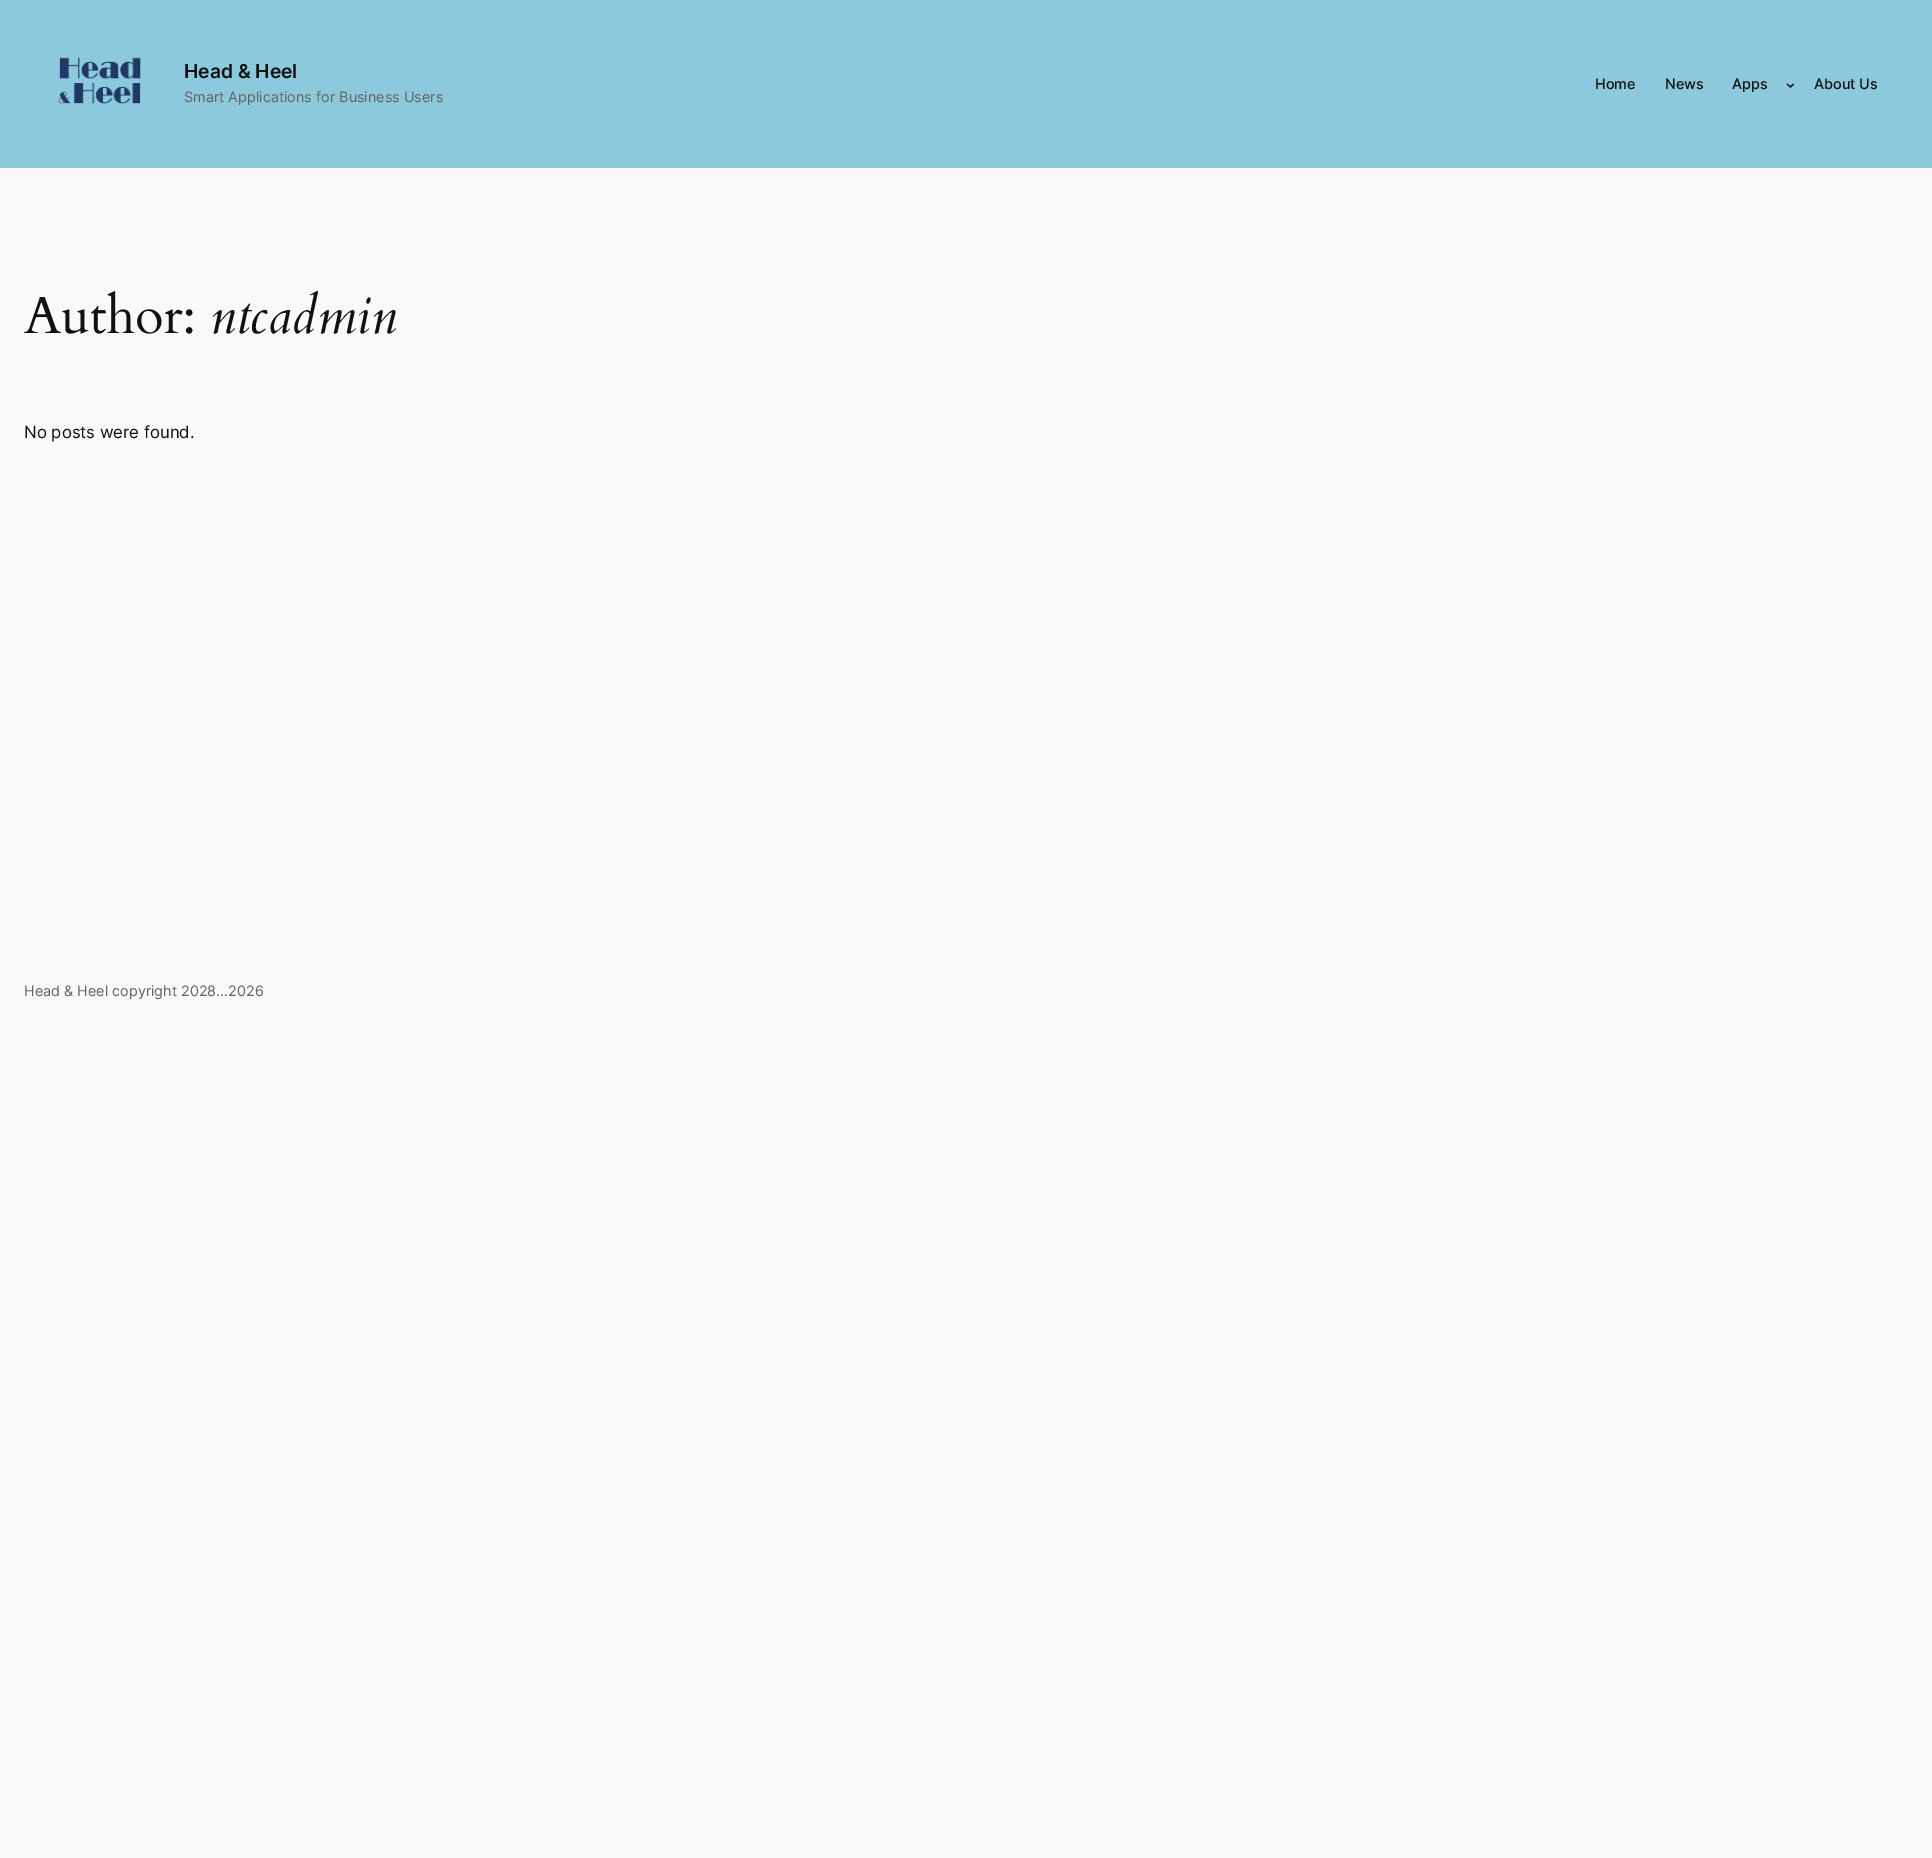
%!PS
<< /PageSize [1932 1858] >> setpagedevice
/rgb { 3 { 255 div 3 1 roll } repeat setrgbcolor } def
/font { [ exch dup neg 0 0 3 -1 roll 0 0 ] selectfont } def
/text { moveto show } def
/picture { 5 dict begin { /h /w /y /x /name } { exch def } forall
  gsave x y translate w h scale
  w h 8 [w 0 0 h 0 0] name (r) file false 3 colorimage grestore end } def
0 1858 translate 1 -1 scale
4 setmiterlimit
249 249 249 rgb
0 0 1932 1858 rectfill
140 201 220 rgb
0 0 1932 168 rectfill
(img_01.rgb) 58 57 83 48 picture
17 17 17 rgb
1.1 setlinewidth
1787 84 moveto 3.5 3 rlineto 3 -3 rlineto stroke
(img_02.rgb) 24 291 169 43 picture
/Inter-SemiBold 19.25 font
(Head & Heel) 184 78 text
/Inter-Regular 14.4 font
99 99 99 rgb
(Smart Applications for Business Users) 184 102 text
/Inter-Medium 14.4 font
17 17 17 rgb
(Home) 1595 89 text
(News) 1665 89 text
(Apps) 1732 89 text
(About Us) 1814 89 text
/Cardo-Italic 52.5 font
(ntcadmin) 210 333 text
/Inter-Regular 16.75 font
(No posts were found.) 24 438 text
/Inter-Regular 14.4 font
99 99 99 rgb
(Head & Heel copyright 2028…2026) 24 996 text
showpage
